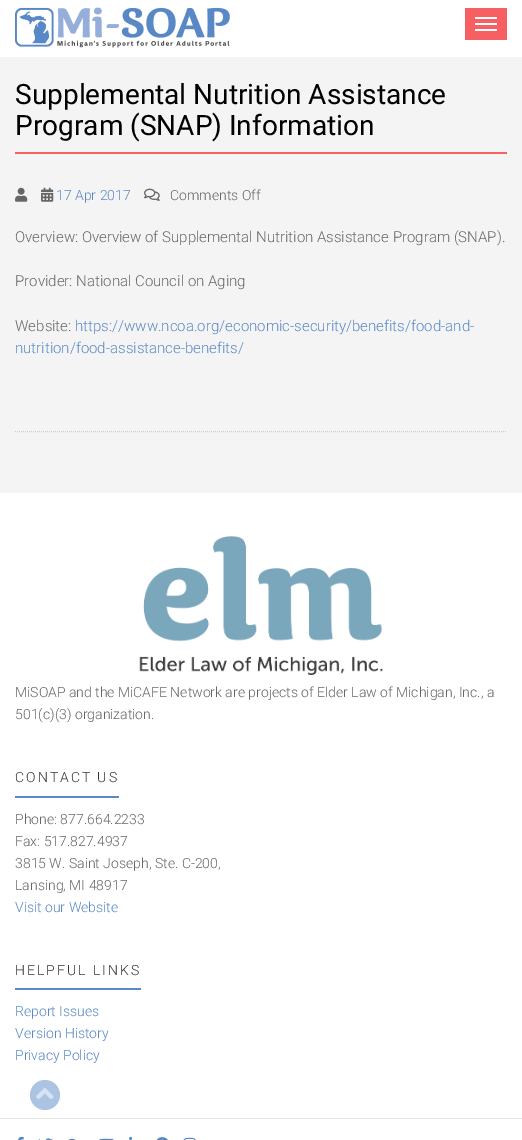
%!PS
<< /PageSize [522 1140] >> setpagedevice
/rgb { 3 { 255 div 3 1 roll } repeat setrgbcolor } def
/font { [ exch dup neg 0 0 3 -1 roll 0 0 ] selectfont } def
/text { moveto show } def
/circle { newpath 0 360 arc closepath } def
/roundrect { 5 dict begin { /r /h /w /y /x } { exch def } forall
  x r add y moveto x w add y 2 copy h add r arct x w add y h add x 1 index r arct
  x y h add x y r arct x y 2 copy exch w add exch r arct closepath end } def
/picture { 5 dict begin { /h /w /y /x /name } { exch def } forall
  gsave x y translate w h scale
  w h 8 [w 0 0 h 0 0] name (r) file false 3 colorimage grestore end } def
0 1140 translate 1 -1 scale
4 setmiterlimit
244 244 244 rgb
0 0 522 1140 rectfill
255 255 255 rgb
0 0 522 57 rectfill
(img_01.rgb) 15 7 215 41 picture
246 96 98 rgb
465 8 42 32 rectfill
255 255 255 rgb
475 17 22 2 1 roundrect fill
475 23 22 2 1 roundrect fill
475 29 22 2 1 roundrect fill
246 98 100 rgb
15 152 492 2 rectfill
(img_02.rgb) 15 187 13 15 picture
(img_03.rgb) 41 187 13 15 picture
(img_04.rgb) 144 188 16 13 picture
204 204 204 rgb
[1 1] 0 setdash
15 431.5 moveto 492 0 rlineto stroke
255 255 255 rgb
0 493 522 625 rectfill
231 231 231 rgb
0 1118 522 1 rectfill
(img_05.rgb) 139 536 244 139 picture
89 136 198 rgb
15 796 104 2 rectfill
15 988 126 2 rectfill
172 196 227 rgb
45 1095 15 circle fill
(img_06.rgb) 36 1088 18 11 picture
255 255 255 rgb
0 1119 522 21 rectfill
(img_07.rgb) 18 1136 6 4 picture
(img_08.rgb) 38 1138 15 2 picture
(img_09.rgb) 68 1138 8 2 picture
(img_10.rgb) 99 1138 15 2 picture
(img_11.rgb) 129 1136 4 4 picture
(img_12.rgb) 156 1137 12 3 picture
(img_13.rgb) 183 1137 13 3 picture
/Roboto-Regular 28 font
0 0 0 rgb
(Supplemental Nutrition Assistance) 15 104 text
(Program \(SNAP\) Information) 15 135 text
/Roboto-Light 14 font
89 136 198 rgb
(17 Apr 2017) 56 200 text
102 102 102 rgb
(Comments Off) 170 200 text
/Roboto-Light 15 font
(Overview: Overview of Supplemental Nutrition Assistance Program \(SNAP\).) 15 242 text
(Provider: National Council on Aging) 15 286 text
(Website:) 15 331 text
89 136 198 rgb
(https://www.ncoa.org/economic-security/benefits/food-and-) 75 331 text
(nutrition/food-assistance-benefits/) 15 353 text
/Roboto-Light 14 font
102 102 102 rgb
(MiSOAP and the MiCAFE Network are projects of Elder Law of Michigan, Inc., a) 15 697 text
(501\(c\)\(3\) organization.) 15 719 text
51 51 51 rgb
15 782 moveto 2 0 (CONTACT US) ashow
102 102 102 rgb
(Phone: 877.664.2233) 15 824 text
(Fax: 517.827.4937) 15 846 text
(3815 W. Saint Joseph, Ste. C-200,) 15 868 text
(Lansing, MI 48917) 15 890 text
89 136 198 rgb
(Visit our Website) 15 912 text
51 51 51 rgb
15 975 moveto 2 0 (HELPFUL LINKS) ashow
89 136 198 rgb
(Report Issues) 15 1016 text
(Version History) 15 1038 text
(Privacy Policy) 15 1060 text
showpage
